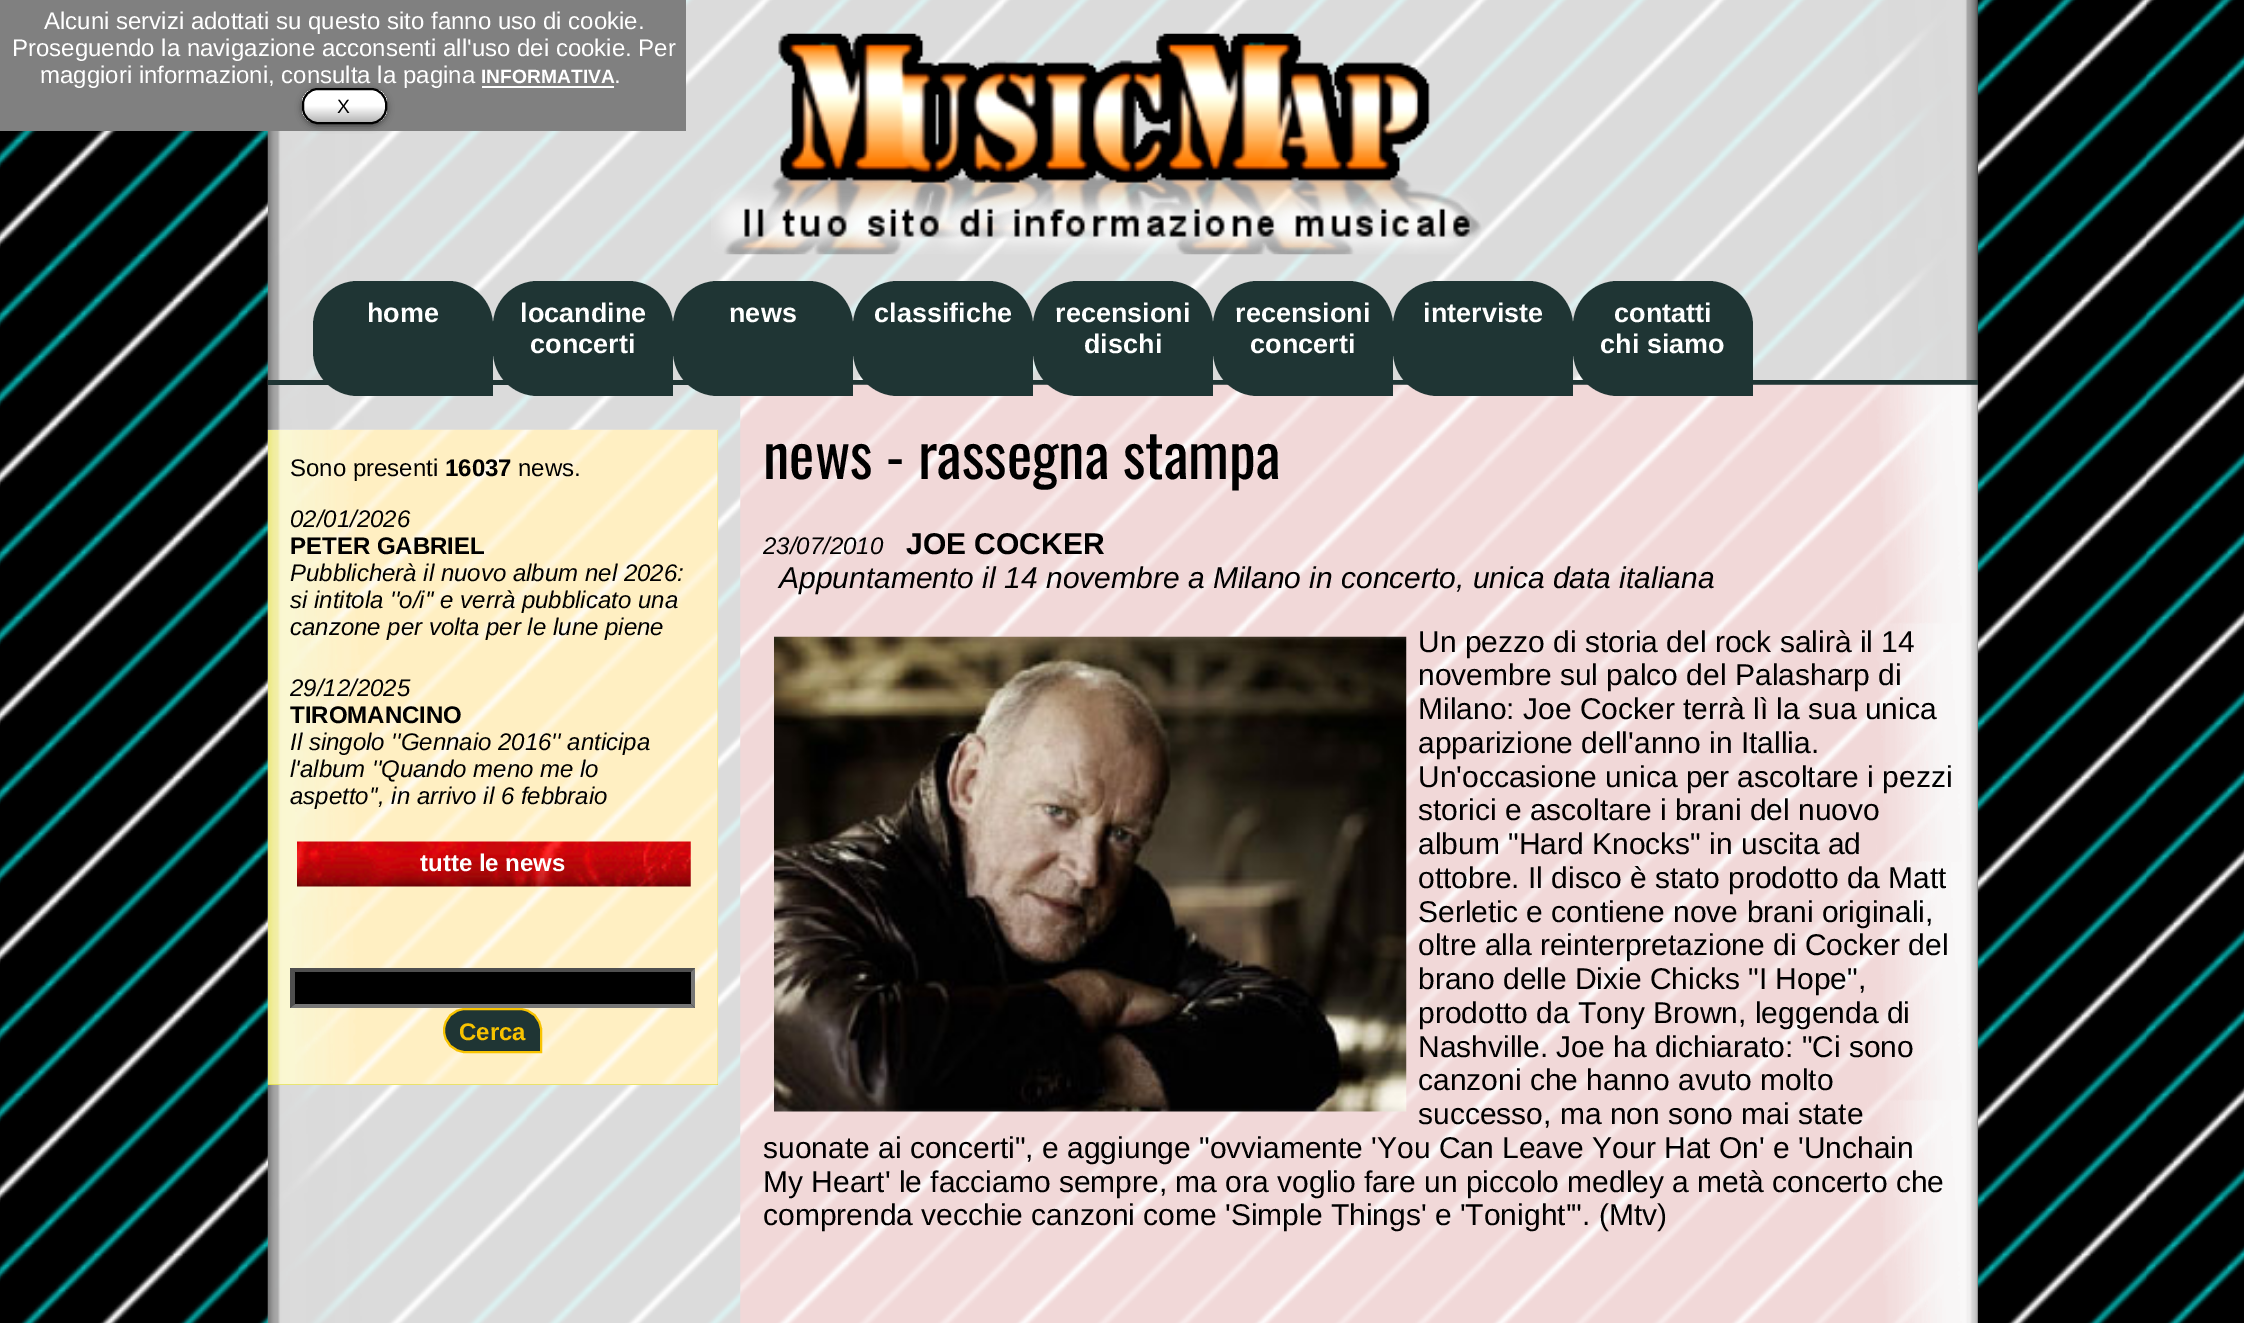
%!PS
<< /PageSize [2244 1323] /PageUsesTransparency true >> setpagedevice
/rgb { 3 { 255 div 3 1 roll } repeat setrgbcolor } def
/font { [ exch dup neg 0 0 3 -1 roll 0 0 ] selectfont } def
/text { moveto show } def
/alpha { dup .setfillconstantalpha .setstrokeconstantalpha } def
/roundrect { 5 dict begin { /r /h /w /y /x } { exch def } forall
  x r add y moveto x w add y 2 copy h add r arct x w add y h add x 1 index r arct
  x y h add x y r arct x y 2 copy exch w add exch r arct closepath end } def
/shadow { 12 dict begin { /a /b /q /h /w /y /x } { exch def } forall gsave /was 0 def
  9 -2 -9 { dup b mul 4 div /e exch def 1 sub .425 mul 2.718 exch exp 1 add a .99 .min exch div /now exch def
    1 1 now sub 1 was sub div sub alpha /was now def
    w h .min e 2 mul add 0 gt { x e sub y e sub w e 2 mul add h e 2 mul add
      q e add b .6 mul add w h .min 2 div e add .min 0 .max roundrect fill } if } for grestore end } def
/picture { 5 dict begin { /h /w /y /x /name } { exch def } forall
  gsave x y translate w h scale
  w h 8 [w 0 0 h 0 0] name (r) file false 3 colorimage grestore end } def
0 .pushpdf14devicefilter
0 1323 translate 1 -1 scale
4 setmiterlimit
255 255 255 rgb
0 0 2244 1323 rectfill
(img_01.rgb) 0 0 2244 1323 picture
0 0 0 rgb
268 0 1710 1323 rectfill
(img_02.rgb) 267 0 1711 1323 picture
31 53 52 rgb
268 380 1710 5 rectfill
128 128 128 rgb
0 0 686 131 rectfill
255 255 255 rgb
482 86 132 2 rectfill
0 0 0 rgb
302 90 85 36 16 3.5 0.5 shadow
gsave
302 88 85 36 16 roundrect clip newpath
gsave 302 90 moveto 85 0 rlineto 0 32 rlineto -85 0 rlineto closepath clip newpath
<< /ShadingType 2 /ColorSpace /DeviceRGB /Coords [304 90 304 122] /Extend [true true] /Function << /FunctionType 3 /Domain [0 1] /Functions [<< /FunctionType 2 /Domain [0 1] /C0 [1 1 1] /C1 [1 1 1] /N 1 >> << /FunctionType 2 /Domain [0 1] /C0 [1 1 1] /C1 [0.71 0.71 0.71] /N 1 >>] /Bounds [0.5] /Encode [0 1 0 1] >> >> shfill grestore
grestore
2 setlinewidth
303 89 83 34 15 roundrect stroke
31 53 52 rgb
358 281 moveto 90 0 rlineto 25 0 45 20 45 45 rcurveto 0 70 rlineto -135 0 rlineto -25 0 -45 -20 -45 -45 rcurveto 0 -25 rlineto 0 -25 20 -45 45 -45 rcurveto closepath fill
538 281 moveto 90 0 rlineto 25 0 45 20 45 45 rcurveto 0 70 rlineto -135 0 rlineto -25 0 -45 -20 -45 -45 rcurveto 0 -25 rlineto 0 -25 20 -45 45 -45 rcurveto closepath fill
(img_06.rgb) 740 384 1238 939 picture
718 281 moveto 90 0 rlineto 25 0 45 20 45 45 rcurveto 0 70 rlineto -135 0 rlineto -25 0 -45 -20 -45 -45 rcurveto 0 -25 rlineto 0 -25 20 -45 45 -45 rcurveto closepath fill
898 281 moveto 90 0 rlineto 25 0 45 20 45 45 rcurveto 0 70 rlineto -135 0 rlineto -25 0 -45 -20 -45 -45 rcurveto 0 -25 rlineto 0 -25 20 -45 45 -45 rcurveto closepath fill
1078 281 moveto 90 0 rlineto 25 0 45 20 45 45 rcurveto 0 70 rlineto -135 0 rlineto -25 0 -45 -20 -45 -45 rcurveto 0 -25 rlineto 0 -25 20 -45 45 -45 rcurveto closepath fill
1258 281 moveto 90 0 rlineto 25 0 45 20 45 45 rcurveto 0 70 rlineto -135 0 rlineto -25 0 -45 -20 -45 -45 rcurveto 0 -25 rlineto 0 -25 20 -45 45 -45 rcurveto closepath fill
1438 281 moveto 90 0 rlineto 25 0 45 20 45 45 rcurveto 0 70 rlineto -135 0 rlineto -25 0 -45 -20 -45 -45 rcurveto 0 -25 rlineto 0 -25 20 -45 45 -45 rcurveto closepath fill
1618 281 moveto 90 0 rlineto 25 0 45 20 45 45 rcurveto 0 70 rlineto -135 0 rlineto -25 0 -45 -20 -45 -45 rcurveto 0 -25 rlineto 0 -25 20 -45 45 -45 rcurveto closepath fill
(img_03.rgb) 711 33 771 222 picture
215 213 17 rgb
268 430 450 655 rectfill
(img_04.rgb) 267 429 451 656 picture
(img_05.rgb) 297 841 394 46 picture
0 0 0 rgb
290 968 405 40 rectfill
79 79 79 rgb
290 968 moveto 405 0 rlineto -4 4 rlineto -396 0 rlineto closepath fill
118 118 118 rgb
695 968 moveto 0 40 rlineto -4 -4 rlineto 0 -32 rlineto closepath fill
695 1008 moveto -405 0 rlineto 5 -4 rlineto 396 0 rlineto closepath fill
79 79 79 rgb
290 1008 moveto 0 -40 rlineto 5 4 rlineto 0 32 rlineto closepath fill
31 53 52 rgb
465.5 1009 moveto 54 0 rlineto 12 0 21.5 9.5 21.5 21.5 rcurveto 0 21.5 rlineto -75.5 0 rlineto -12 0 -21.5 -9.5 -21.5 -21.5 rcurveto 0 -12 9.5 -21.5 21.5 -21.5 rcurveto closepath gsave fill grestore
248 195 0 rgb
stroke
(img_07.rgb) 774 636 633 476 picture
/LiberationSans-Regular 24 font
255 255 255 rgb
(Alcuni servizi adottati su questo sito fanno uso di cookie.) 44 29 text
(Proseguendo la navigazione acconsenti all'uso dei cookie. Per) 12 56 text
(maggiori informazioni, consulta la pagina) 40 83 text
/LiberationSans-Bold 19.25 font
(INFORMATIVA) 481 83 text
/LiberationSans-Regular 24 font
(.) 614 83 text
/LiberationSans-Regular 19.25 font
0 0 0 rgb
(X) 337 113 text
/LiberationSans-Bold 27 font
255 255 255 rgb
(home) 367 322 text
(locandine) 520 322 text
(concerti) 530 353 text
(news) 729 322 text
(classifiche) 874 322 text
(recensioni) 1055 322 text
(dischi) 1084 353 text
(recensioni) 1235 322 text
(concerti) 1250 353 text
(interviste) 1423 322 text
(contatti) 1614 322 text
(chi siamo) 1600 353 text
/LiberationSans-Regular 24 font
0 0 0 rgb
(Sono presenti) 290 476 text
/LiberationSans-Bold 24 font
(16037) 445 476 text
/LiberationSans-Regular 24 font
(news.) 518 476 text
/LiberationSans-Italic 24 font
(02/01/2026) 290 527 text
/LiberationSans-Bold 24 font
(PETER GABRIEL) 290 554 text
/LiberationSans-Italic 24 font
(Pubblicherà il nuovo album nel 2026:) 290 581 text
(si intitola ''o/i'' e verrà pubblicato una) 290 608 text
(canzone per volta per le lune piene) 290 635 text
(29/12/2025) 290 696 text
/LiberationSans-Bold 24 font
(TIROMANCINO) 290 723 text
/LiberationSans-Italic 24 font
(Il singolo ''Gennaio 2016'' anticipa) 290 750 text
(l'album ''Quando meno me lo) 290 777 text
(aspetto'', in arrivo il 6 febbraio) 290 804 text
/LiberationSans-Bold 24 font
255 255 255 rgb
(tutte le news) 420 871 text
248 195 0 rgb
(Cerca) 459 1040 text
/Oswald-Regular 60 font
0 0 0 rgb
(news - rassegna stampa) 763 479 text
/LiberationSans-Italic 24 font
(23/07/2010) 763 554 text
/LiberationSans-Bold 30 font
(JOE COCKER) 906 554 text
/LiberationSans-Italic 30 font
(Appuntamento il 14 novembre a Milano in concerto, unica data italiana) 779 588 text
/LiberationSans-Regular 30 font
(Un pezzo di storia del rock salirà il 14) 1418 652 text
(novembre sul palco del Palasharp di) 1418 685 text
(Milano: Joe Cocker terrà lì la sua unica) 1418 719 text
(apparizione dell'anno in Itallia.) 1418 753 text
(Un'occasione unica per ascoltare i pezzi) 1418 787 text
(storici e ascoltare i brani del nuovo) 1418 820 text
(album "Hard Knocks" in uscita ad) 1418 854 text
(ottobre. Il disco è stato prodotto da Matt) 1418 888 text
(Serletic e contiene nove brani originali,) 1418 922 text
(oltre alla reinterpretazione di Cocker del) 1418 955 text
(brano delle Dixie Chicks "I Hope",) 1418 989 text
(prodotto da Tony Brown, leggenda di) 1418 1023 text
(Nashville. Joe ha dichiarato: "Ci sono) 1418 1057 text
(canzoni che hanno avuto molto) 1418 1090 text
(successo, ma non sono mai state) 1418 1124 text
(suonate ai concerti", e aggiunge "ovviamente 'You Can Leave Your Hat On' e 'Unchain) 763 1158 text
(My Heart' le facciamo sempre, ma ora voglio fare un piccolo medley a metà concerto che) 763 1192 text
(comprenda vecchie canzoni come 'Simple Things' e 'Tonight'". \(Mtv\)) 763 1225 text
.poppdf14devicefilter showpage
